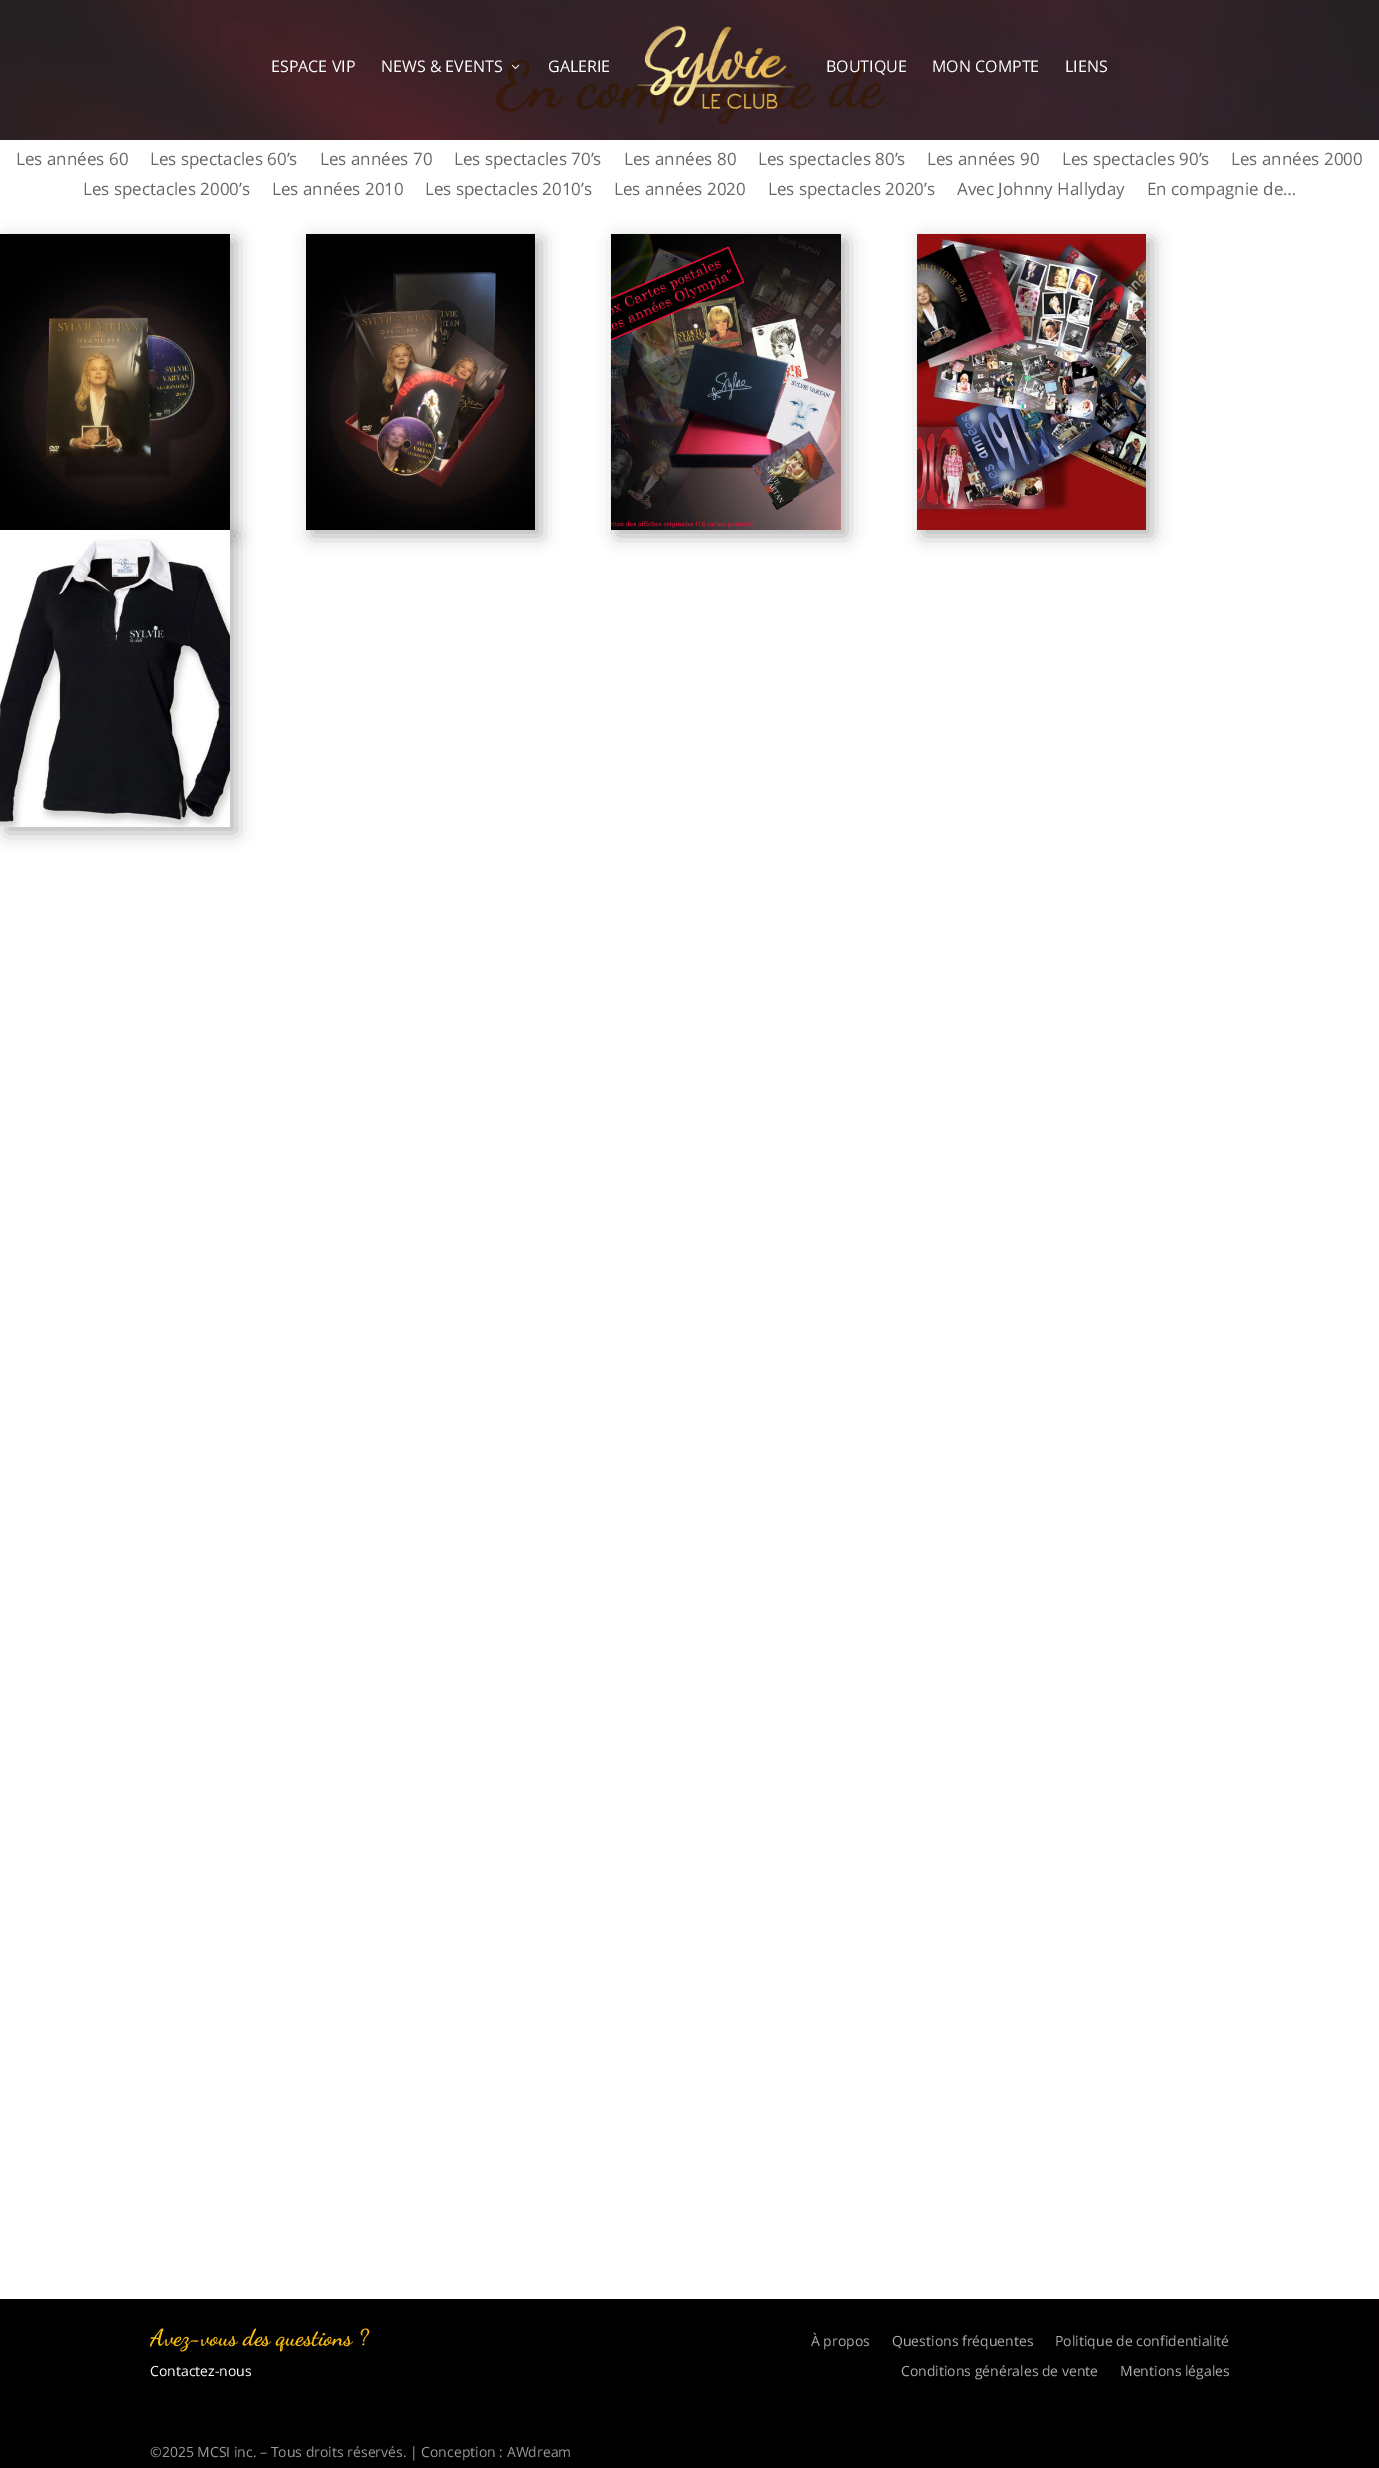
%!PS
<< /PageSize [1379 2468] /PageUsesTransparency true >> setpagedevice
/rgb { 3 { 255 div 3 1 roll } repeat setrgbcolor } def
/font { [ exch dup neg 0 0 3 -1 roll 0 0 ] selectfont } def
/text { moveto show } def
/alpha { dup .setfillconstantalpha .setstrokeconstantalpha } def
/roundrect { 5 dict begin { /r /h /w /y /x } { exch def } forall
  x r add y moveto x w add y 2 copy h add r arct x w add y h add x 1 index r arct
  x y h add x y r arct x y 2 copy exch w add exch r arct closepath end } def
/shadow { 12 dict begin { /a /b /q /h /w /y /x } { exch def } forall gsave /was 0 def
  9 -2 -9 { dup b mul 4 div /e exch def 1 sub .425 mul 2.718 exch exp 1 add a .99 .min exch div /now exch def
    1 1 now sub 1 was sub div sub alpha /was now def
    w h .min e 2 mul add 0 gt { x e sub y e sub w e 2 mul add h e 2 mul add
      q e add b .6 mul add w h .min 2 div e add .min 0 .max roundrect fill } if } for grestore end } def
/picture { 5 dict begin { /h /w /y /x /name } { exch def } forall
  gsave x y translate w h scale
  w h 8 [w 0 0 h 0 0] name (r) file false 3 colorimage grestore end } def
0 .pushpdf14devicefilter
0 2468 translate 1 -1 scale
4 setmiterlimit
255 255 255 rgb
0 0 1379 2468 rectfill
(img_01.rgb) 0 2299 1379 169 picture
0.75 alpha
0 0 0 rgb
0 0 1379 140 rectfill
1 alpha
(img_02.rgb) 0 0 1379 140 picture
(img_03.rgb) 511 64 9 5 picture
(img_04.rgb) 637 25 158 84 picture
6 240 230 296 0 9 0.3 shadow
(img_05.rgb) 0 234 230 296 picture
312 240 229 296 0 9 0.3 shadow
(img_06.rgb) 306 234 229 296 picture
617 240 230 296 0 9 0.3 shadow
(img_07.rgb) 611 234 230 296 picture
923 240 229 296 0 9 0.3 shadow
(img_08.rgb) 917 234 229 296 picture
6 536 230 297 0 9 0.3 shadow
(img_09.rgb) 0 530 230 297 picture
0.5 alpha
1378 2299 1 114 rectfill
0.75 alpha
1378 2413 1 55 rectfill
/OpenSans-Regular 16 font
1 alpha
255 255 255 rgb
(ESPACE VIP) 271 72 text
(NEWS & EVENTS) 381 72 text
(GALERIE) 548 72 text
(BOUTIQUE) 826 72 text
(MON COMPTE) 932 72 text
(LIENS) 1065 72 text
/OpenSans-Regular 17 font
102 102 102 rgb
(Les années 60) 16 165 text
(Les spectacles 60’s) 150 165 text
(Les années 70) 320 165 text
(Les spectacles 70’s) 454 165 text
(Les années 80) 624 165 text
(Les spectacles 80’s) 758 165 text
(Les années 90) 927 165 text
(Les spectacles 90’s) 1062 165 text
(Les années 2000) 1231 165 text
(Les spectacles 2000’s) 83 195 text
(Les années 2010) 272 195 text
(Les spectacles 2010’s) 425 195 text
(Les années 2020) 614 195 text
(Les spectacles 2020’s) 768 195 text
(Avec Johnny Hallyday) 957 195 text
(En compagnie de…) 1147 195 text
/DancingScript-Bold 23 font
255 191 17 rgb
(Avez-vous des questions ?) 150 2345 text
/OpenSans-Regular 14 font
255 255 255 rgb
(Contactez-nous) 150 2376 text
173 173 173 rgb
(À propos) 811 2346 text
(Questions fréquentes) 892 2346 text
(Politique de confidentialité) 1055 2346 text
(Conditions générales de vente) 901 2376 text
(Mentions légales) 1120 2376 text
153 153 153 rgb
(©2025 MCSI inc. – Tous droits réservés. | Conception : AWdream) 150 2457 text
.poppdf14devicefilter showpage
